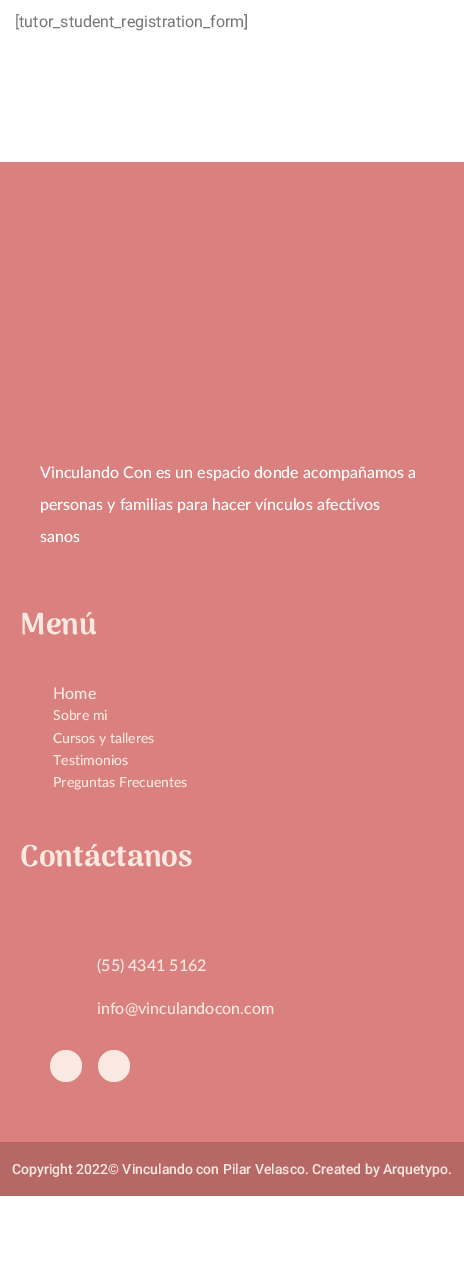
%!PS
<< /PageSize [464 1283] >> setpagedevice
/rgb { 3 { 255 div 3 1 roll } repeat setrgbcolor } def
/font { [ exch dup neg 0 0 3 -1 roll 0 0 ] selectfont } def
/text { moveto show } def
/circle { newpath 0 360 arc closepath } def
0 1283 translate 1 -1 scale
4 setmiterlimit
255 255 255 rgb
0 0 464 1283 rectfill
218 128 127 rgb
0 162 464 980 rectfill
250 233 224 rgb
66 1066 16 circle fill
114 1066 16 circle fill
182 104 103 rgb
0 1142 464 54 rectfill
/Roboto-Regular 16 font
119 119 119 rgb
([tutor_student_registration_form]) 15 27 text
/Lato-Medium 16 font
255 255 255 rgb
(Vinculando Con es un espacio donde acompañamos a) 40 478 text
(personas y familias para hacer vínculos afectivos) 40 510 text
(sanos) 40 542 text
/Arima-Bold 30 font
250 233 224 rgb
(Menú) 20 634 text
/Lato-Medium 16 font
(Home) 53 699 text
/Lato-Medium 14 font
(Sobre mi) 53 720 text
(Cursos y talleres) 53 743 text
(Testimonios) 53 765 text
(Preguntas Frecuentes) 53 787 text
/Arima-Bold 30 font
(Contáctanos) 20 866 text
/Lato-Medium 16 font
(\(55\) 4341 5162) 97 971 text
(info@vinculandocon.com) 97 1014 text
/Roboto-Medium 14 font
(Copyright 2022© Vinculando con Pilar Velasco. Created by Arquetypo.) 12 1174 text
showpage
